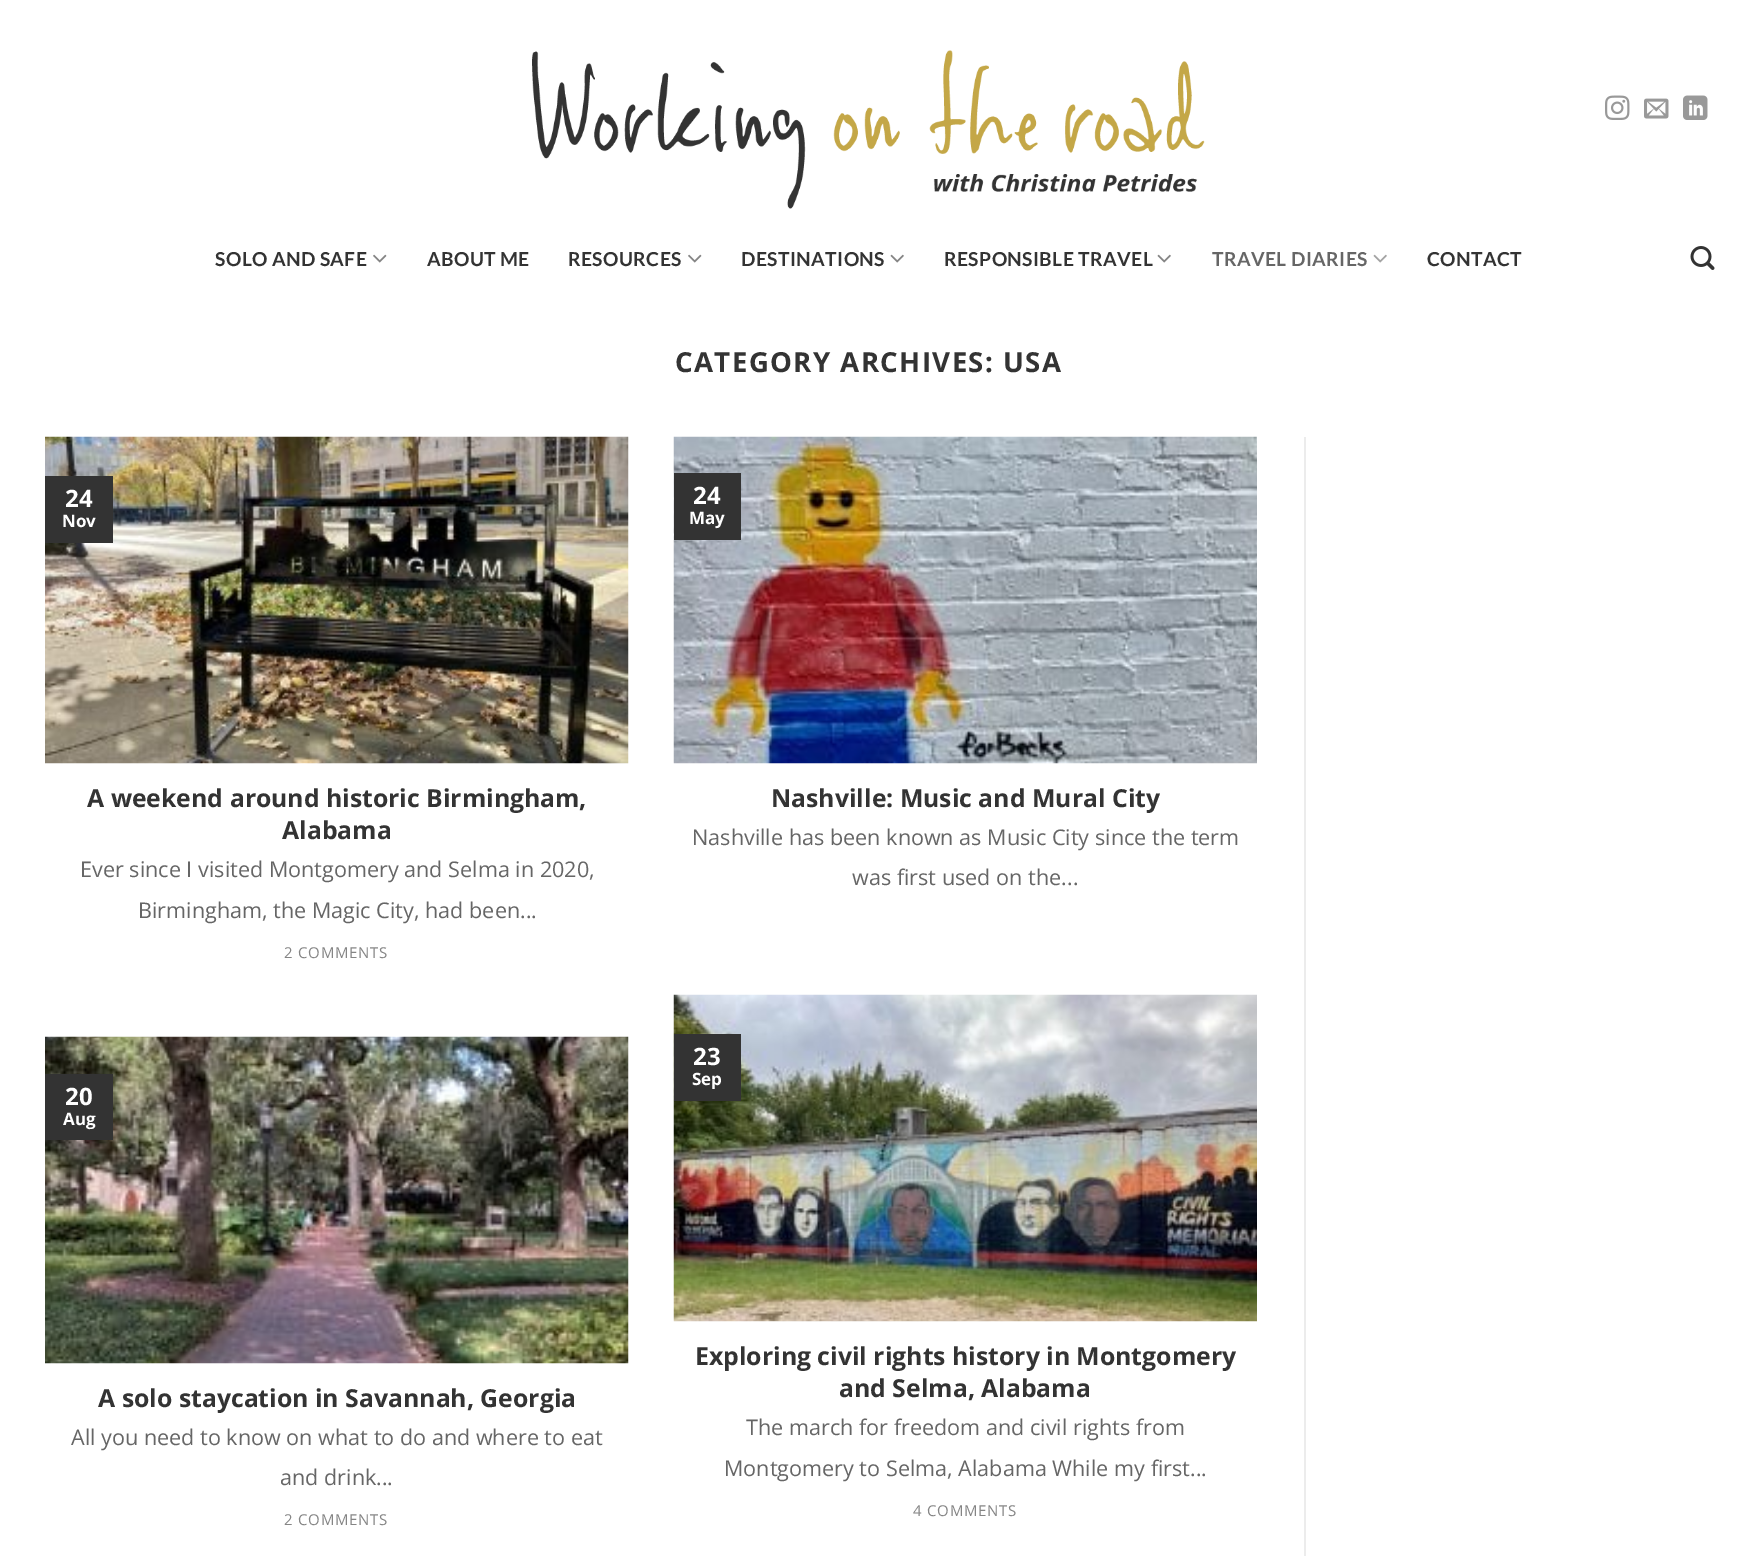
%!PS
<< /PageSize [1737 1556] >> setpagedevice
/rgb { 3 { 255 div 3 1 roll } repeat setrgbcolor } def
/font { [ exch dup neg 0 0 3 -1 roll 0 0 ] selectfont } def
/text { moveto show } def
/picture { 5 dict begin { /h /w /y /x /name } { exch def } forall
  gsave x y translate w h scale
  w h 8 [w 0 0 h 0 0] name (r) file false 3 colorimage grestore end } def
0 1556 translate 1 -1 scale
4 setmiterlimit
255 255 255 rgb
0 0 1737 1556 rectfill
(img_01.rgb) 532 50 673 159 picture
(img_02.rgb) 1605 95 25 25 picture
(img_03.rgb) 1644 98 25 21 picture
(img_04.rgb) 1683 95 25 25 picture
(img_05.rgb) 373 254 14 9 picture
(img_05.rgb) 688 254 14 9 picture
(img_06.rgb) 890 254 14 9 picture
(img_06.rgb) 1157 254 14 9 picture
(img_07.rgb) 1373 254 14 9 picture
(img_08.rgb) 1690 246 25 24 picture
(img_09.rgb) 45 436 584 328 picture
51 51 51 rgb
45 476 68 67 rectfill
(img_10.rgb) 673 436 584 328 picture
674 473 67 67 rectfill
(img_11.rgb) 45 1036 584 328 picture
45 1074 68 66 rectfill
(img_12.rgb) 673 994 584 328 picture
674 1034 67 67 rectfill
236 236 236 rgb
1304 437 2 1119 rectfill
/Lato-Bold 19.25 font
51 51 51 rgb
215 266 moveto 0.4 0 (SOLO AND SAFE) ashow
427 266 moveto 0.4 0 (ABOUT ME) ashow
568 266 moveto 0.4 0 (RESOURCES) ashow
741 266 moveto 0.4 0 (DESTINATIONS) ashow
944 266 moveto 0.4 0 (RESPONSIBLE TRAVEL) ashow
102 102 102 rgb
1212 266 moveto 0.4 0 (TRAVEL DIARIES) ashow
51 51 51 rgb
1427 266 moveto 0.4 0 (CONTACT) ashow
/OpenSans-Bold 27.6 font
675 372 moveto 1.4 0 (CATEGORY ARCHIVES: USA) ashow
/OpenSans-Bold 24 font
255 255 255 rgb
(24) 65 507 text
/OpenSans-Bold 17 font
(Nov) 62 527 text
/OpenSans-Bold 24.8 font
51 51 51 rgb
(A weekend around historic Birmingham,) 87 807 text
(Alabama) 282 839 text
/OpenSans-Regular 21.6 font
102 102 102 rgb
(Ever since I visited Montgomery and Selma in 2020,) 80 877 text
(Birmingham, the Magic City, had been...) 138 918 text
/OpenSans-Regular 15 font
133 133 133 rgb
284 958 moveto 0.75 0 (2 COMMENTS) ashow
/OpenSans-Bold 24 font
255 255 255 rgb
(24) 693 504 text
/OpenSans-Bold 17 font
(May) 689 524 text
/OpenSans-Bold 24.8 font
51 51 51 rgb
(Nashville: Music and Mural City) 771 807 text
/OpenSans-Regular 21.6 font
102 102 102 rgb
(Nashville has been known as Music City since the term) 692 845 text
(was first used on the...) 852 885 text
/OpenSans-Bold 24 font
255 255 255 rgb
(20) 65 1105 text
/OpenSans-Bold 17 font
(Aug) 63 1125 text
/OpenSans-Bold 24.8 font
51 51 51 rgb
(A solo staycation in Savannah, Georgia) 98 1407 text
/OpenSans-Regular 21.6 font
102 102 102 rgb
(All you need to know on what to do and where to eat) 71 1445 text
(and drink...) 280 1485 text
/OpenSans-Regular 15 font
133 133 133 rgb
284 1525 moveto 0.75 0 (2 COMMENTS) ashow
/OpenSans-Bold 24 font
255 255 255 rgb
(23) 693 1065 text
/OpenSans-Bold 17 font
(Sep) 692 1085 text
/OpenSans-Bold 24.8 font
51 51 51 rgb
(Exploring civil rights history in Montgomery) 695 1365 text
(and Selma, Alabama) 839 1397 text
/OpenSans-Regular 21.6 font
102 102 102 rgb
(The march for freedom and civil rights from) 746 1435 text
(Montgomery to Selma, Alabama While my first...) 724 1476 text
/OpenSans-Regular 15 font
133 133 133 rgb
913 1516 moveto 0.75 0 (4 COMMENTS) ashow
showpage
